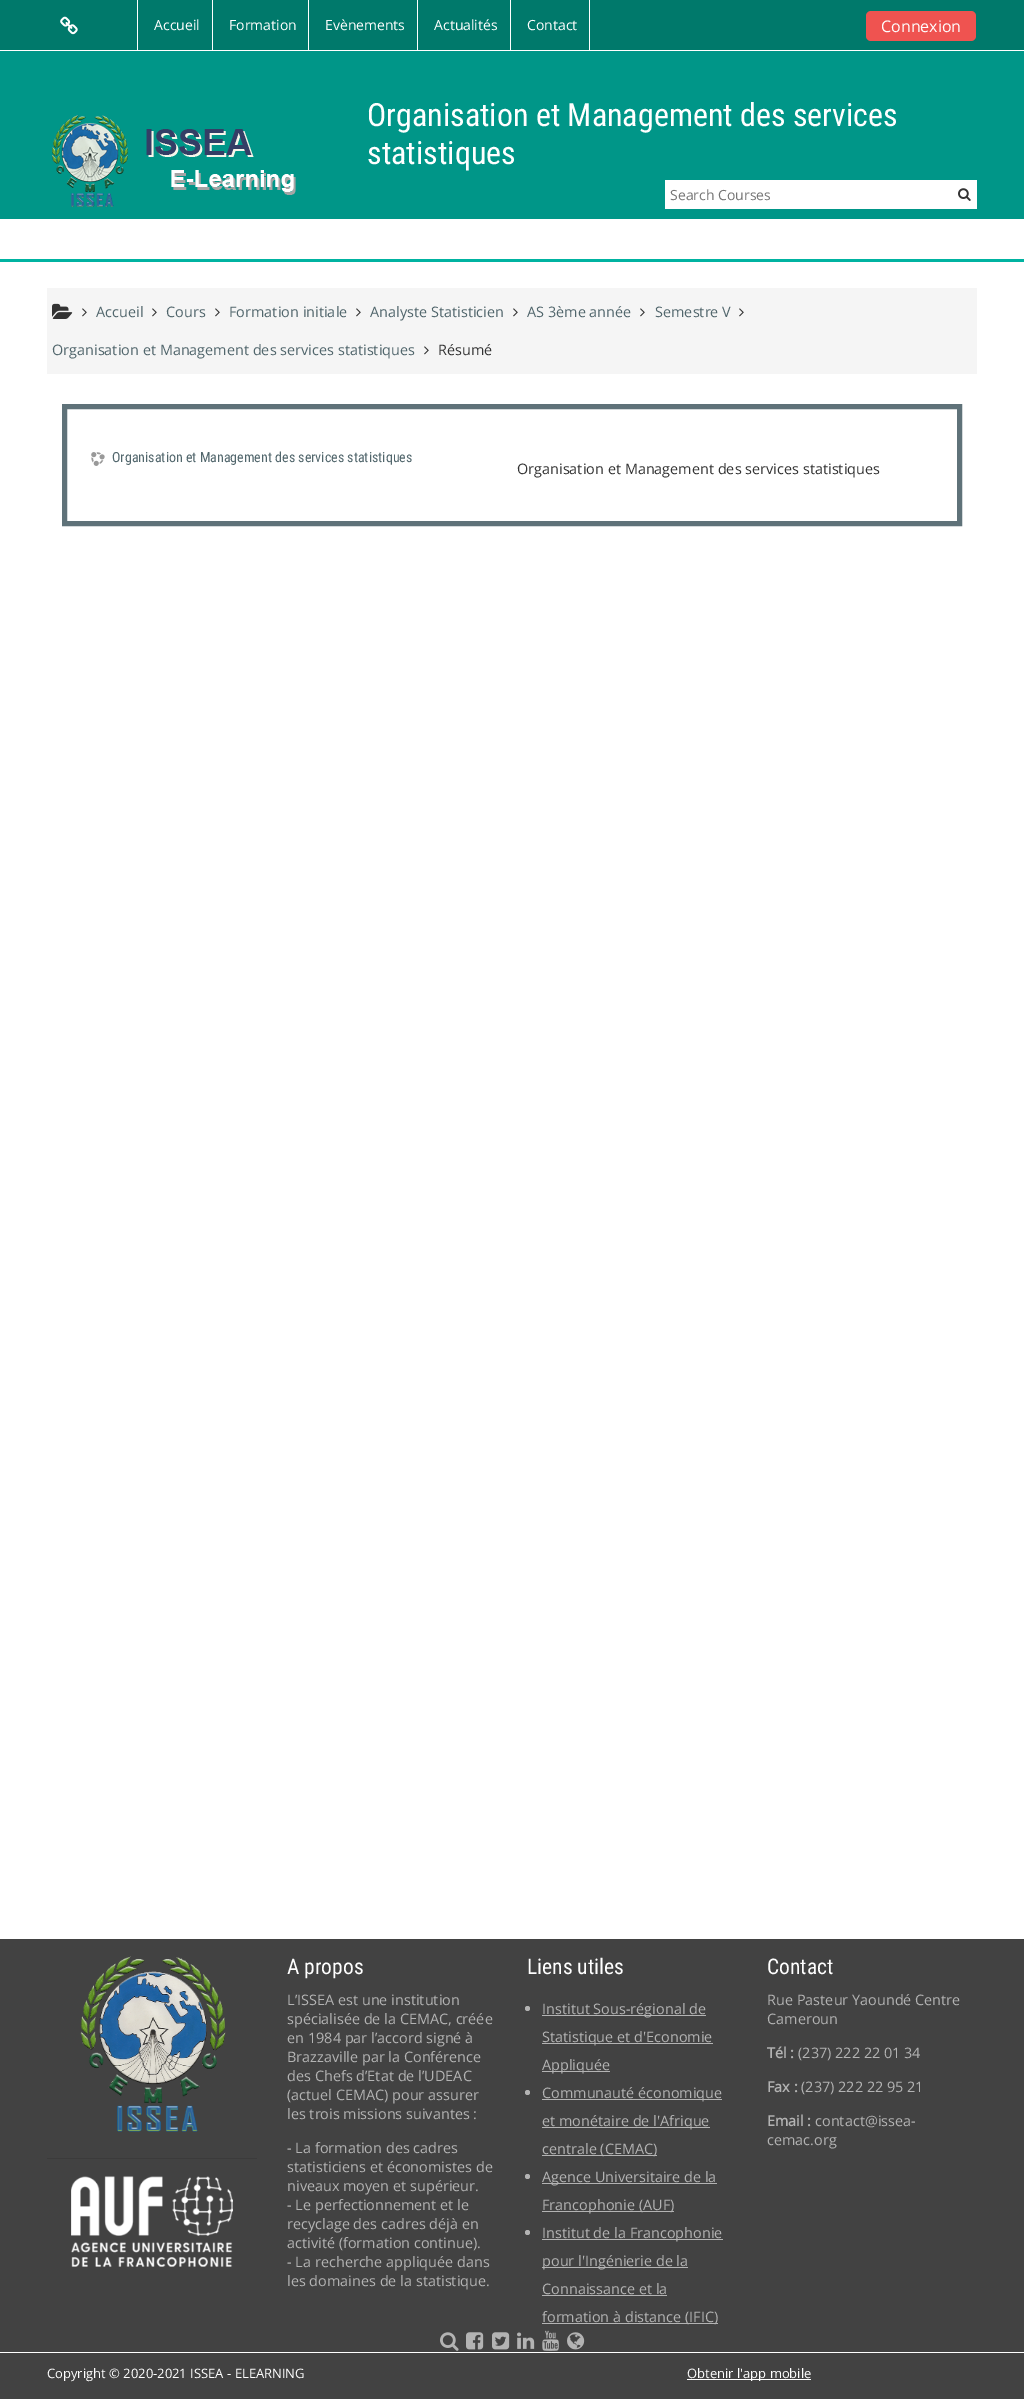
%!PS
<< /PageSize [1024 2399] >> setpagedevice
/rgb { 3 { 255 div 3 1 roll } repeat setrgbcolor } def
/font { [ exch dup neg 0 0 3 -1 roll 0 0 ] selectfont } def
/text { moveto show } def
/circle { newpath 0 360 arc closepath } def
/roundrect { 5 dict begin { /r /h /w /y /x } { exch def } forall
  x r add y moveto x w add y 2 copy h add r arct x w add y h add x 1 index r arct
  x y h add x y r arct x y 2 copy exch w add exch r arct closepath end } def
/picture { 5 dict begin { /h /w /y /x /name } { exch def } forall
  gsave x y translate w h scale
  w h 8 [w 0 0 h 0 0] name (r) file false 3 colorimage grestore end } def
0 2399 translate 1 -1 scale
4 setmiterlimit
255 255 255 rgb
0 0 1024 2399 rectfill
0 150 136 rgb
0 51 1024 168 rectfill
0 121 107 rgb
0 0 1024 50 rectfill
(img_01.rgb) 60 16 18 19 picture
255 255 255 rgb
137 0 1 51 rectfill
212 0 1 51 rectfill
308 0 1 51 rectfill
417 0 1 51 rectfill
589 0 1 51 rectfill
510 0 1 51 rectfill
239 83 80 rgb
866 11 110 30 5 roundrect fill
(img_02.rgb) 52 115 244 92 picture
255 255 255 rgb
665 180 312 29 rectfill
(img_03.rgb) 958 188 13 13 picture
0 179 161 rgb
0 259 1024 3 rectfill
245 245 245 rgb
47 288 930 86 rectfill
(img_04.rgb) 52 303 21 16 picture
(img_05.rgb) 82 308 5 9 picture
(img_05.rgb) 152 308 5 9 picture
(img_05.rgb) 215 308 5 9 picture
(img_05.rgb) 356 308 5 9 picture
(img_05.rgb) 513 308 5 9 picture
(img_05.rgb) 640 308 5 9 picture
(img_05.rgb) 739 308 5 9 picture
(img_05.rgb) 424 346 5 9 picture
95 114 121 rgb
5 setlinewidth
64.5 406.5 895 117 rectstroke
(img_06.rgb) 91 452 14 14 picture
66 66 66 rgb
0 1939 1024 460 rectfill
(img_07.rgb) 80 1956 146 176 picture
59 59 59 rgb
47 2158 210 1 rectfill
(img_08.rgb) 71 2176 162 91 picture
179 179 179 rgb
527.5 2008.5 2.5 circle fill
542 2015 164 1 rectfill
542 2043 171 1 rectfill
542 2071 68 1 rectfill
527.5 2092.5 2.5 circle fill
542 2099 180 1 rectfill
542 2127 168 1 rectfill
542 2155 115 1 rectfill
527.5 2176.5 2.5 circle fill
542 2183 175 1 rectfill
542 2211 132 1 rectfill
527.5 2232.5 2.5 circle fill
542 2239 181 1 rectfill
542 2267 146 1 rectfill
542 2295 125 1 rectfill
542 2323 176 1 rectfill
(img_09.rgb) 440 2332 19 19 picture
(img_10.rgb) 466 2332 18 18 picture
(img_11.rgb) 492 2332 18 18 picture
(img_12.rgb) 517 2332 18 17 picture
(img_13.rgb) 542 2330 17 21 picture
(img_14.rgb) 567 2332 18 18 picture
255 255 255 rgb
0 2352 1024 1 rectfill
687 2379 124 1 rectfill
/OpenSans-Regular 14 font
(Accueil) 154 30 text
(Formation) 229 30 text
(Evènements) 325 30 text
(Actualités) 434 30 text
(Contact) 527 30 text
/OpenSans-Regular 16 font
(Connexion) 881 32 text
/RobotoCondensed-Regular 32 font
(Organisation et Management des services) 367 126 text
(statistiques) 367 164 text
/OpenSans-Regular 14 font
117 117 117 rgb
(Search Courses) 670 200 text
/OpenSans-Regular 14.45 font
81 102 108 rgb
(Accueil) 96 317 text
(Cours) 166 317 text
(Formation initiale) 229 317 text
(Analyste Statisticien) 370 317 text
(AS 3ème année) 527 317 text
(Semestre V) 655 317 text
(Organisation et Management des services statistiques) 52 355 text
51 51 51 rgb
(Résumé) 438 355 text
/RobotoCondensed-Regular 14 font
81 102 108 rgb
(Organisation et Management des services statistiques) 112 462 text
/OpenSans-Regular 14.45 font
51 51 51 rgb
(Organisation et Management des services statistiques) 517 474 text
/RobotoCondensed-Regular 21.5 font
255 255 255 rgb
(A propos) 287 1974 text
/OpenSans-Regular 14.45 font
179 179 179 rgb
(L’ISSEA est une institution) 287 2005 text
(spécialisée de la CEMAC, créée) 287 2024 text
(en 1984 par l’accord signé à) 287 2043 text
(Brazzaville par la Conférence) 287 2062 text
(des Chefs d’Etat de l’UDEAC) 287 2081 text
(\(actuel CEMAC\) pour assurer) 287 2100 text
(les trois missions suivantes :) 287 2119 text
(- La formation des cadres) 287 2153 text
(statisticiens et économistes de) 287 2172 text
(niveaux moyen et supérieur.) 287 2191 text
(- Le perfectionnement et le) 287 2210 text
(recyclage des cadres déjà en) 287 2229 text
(activité \(formation continue\).) 287 2248 text
(- La recherche appliquée dans) 287 2267 text
(les domaines de la statistique.) 287 2286 text
/RobotoCondensed-Regular 21.5 font
255 255 255 rgb
(Liens utiles) 527 1974 text
/OpenSans-Regular 14.45 font
179 179 179 rgb
(Institut Sous-régional de) 542 2014 text
(Statistique et d'Economie) 542 2042 text
(Appliquée) 542 2070 text
(Communauté économique) 542 2098 text
(et monétaire de l'Afrique) 542 2126 text
(centrale \(CEMAC\)) 542 2154 text
(Agence Universitaire de la) 542 2182 text
(Francophonie \(AUF\)) 542 2210 text
(Institut de la Francophonie) 542 2238 text
(pour l'Ingénierie de la) 542 2266 text
(Connaissance et la) 542 2294 text
(formation à distance \(IFIC\)) 542 2322 text
/RobotoCondensed-Regular 21.5 font
255 255 255 rgb
(Contact) 767 1974 text
/OpenSans-Regular 14.45 font
179 179 179 rgb
(Rue Pasteur Yaoundé Centre) 767 2005 text
(Cameroun) 767 2024 text
/OpenSans-Bold 14.45 font
(Tél :) 767 2058 text
/OpenSans-Regular 14.45 font
(\(237\) 222 22 01 34) 798 2058 text
/OpenSans-Bold 14.45 font
(Fax :) 767 2092 text
/OpenSans-Regular 14.45 font
(\(237\) 222 22 95 21) 801 2092 text
/OpenSans-Bold 14.45 font
(Email :) 767 2126 text
/OpenSans-Regular 14.45 font
(contact@issea-) 815 2126 text
(cemac.org) 767 2145 text
/OpenSans-Regular 13 font
255 255 255 rgb
(Copyright © 2020-2021 ISSEA - ELEARNING) 47 2378 text
(Obtenir l'app mobile) 687 2378 text
showpage
